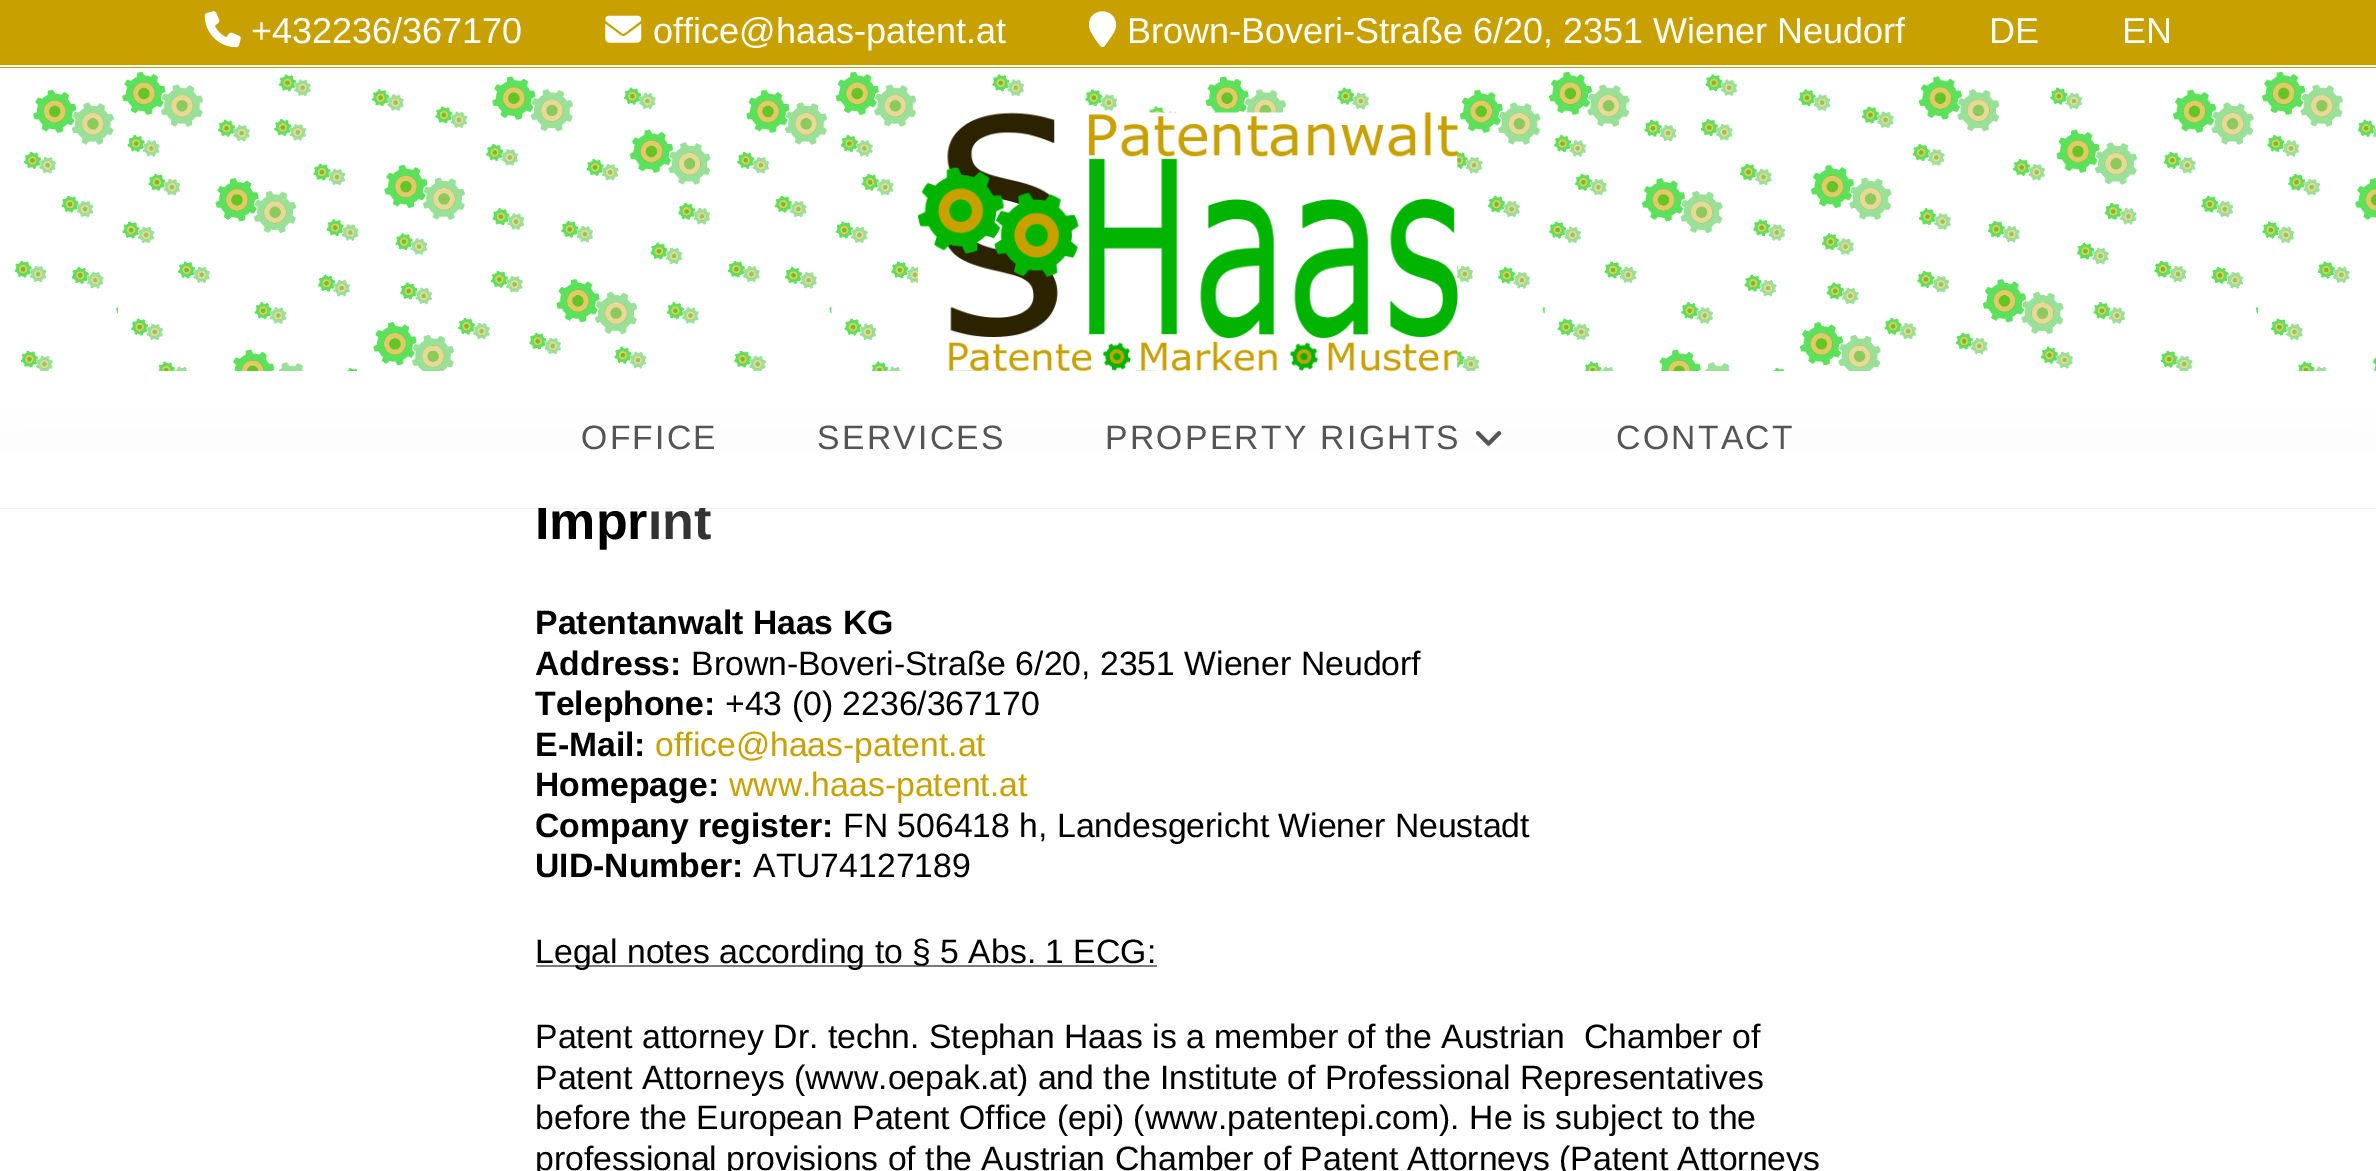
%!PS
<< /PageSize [2376 1171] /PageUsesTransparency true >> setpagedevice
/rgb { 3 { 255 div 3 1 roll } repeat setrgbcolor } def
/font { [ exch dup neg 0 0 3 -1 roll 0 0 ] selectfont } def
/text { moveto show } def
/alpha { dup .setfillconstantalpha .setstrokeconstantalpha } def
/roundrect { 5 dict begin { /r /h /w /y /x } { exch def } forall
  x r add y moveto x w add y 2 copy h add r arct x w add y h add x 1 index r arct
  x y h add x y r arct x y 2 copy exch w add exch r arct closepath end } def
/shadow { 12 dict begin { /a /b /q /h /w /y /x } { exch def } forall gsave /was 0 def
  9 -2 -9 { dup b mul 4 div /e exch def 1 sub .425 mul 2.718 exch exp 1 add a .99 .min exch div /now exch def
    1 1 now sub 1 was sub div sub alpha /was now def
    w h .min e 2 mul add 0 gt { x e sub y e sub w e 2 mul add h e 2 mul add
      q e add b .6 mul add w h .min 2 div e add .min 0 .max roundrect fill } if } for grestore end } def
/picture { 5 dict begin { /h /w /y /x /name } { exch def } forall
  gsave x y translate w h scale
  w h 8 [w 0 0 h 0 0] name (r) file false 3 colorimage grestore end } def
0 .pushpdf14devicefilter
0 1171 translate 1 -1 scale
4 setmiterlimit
255 255 255 rgb
0 0 2376 1171 rectfill
200 160 0 rgb
0 0 2376 68 rectfill
255 255 255 rgb
0 65 2376 2 rectfill
(img_01.rgb) 204 11 37 37 picture
(img_02.rgb) 605 15 37 28 picture
1116 25 moveto 0 5 -3.5 10 -6.5 14 rcurveto -7 10 -6.5 11 -13.5 1 rcurveto -2.5 -4 -7 -10 -7 -15 rcurveto 0 -18 26.5 -18 27 0 rcurveto closepath fill
(img_03.rgb) 14 71 2362 300 picture
(img_04.rgb) 918 112 540 260 picture
0 0 0 rgb
0 509 2376 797 0 45 0.1 shadow
(img_05.rgb) 1475 431 27 15 picture
255 255 255 rgb
0 509 2376 662 rectfill
122 122 122 rgb
536 965 621 2 rectfill
/LiberationSans-Regular 36 font
255 255 255 rgb
(+432236/367170) 251 43 text
(office@haas-patent.at) 653 43 text
(Brown-Boveri-Straße 6/20, 2351 Wiener Neudorf) 1127 43 text
(DE) 1989 43 text
(EN) 2122 43 text
/LiberationSans-Regular 33.75 font
85 85 85 rgb
581 449 moveto 2.25 0 (OFFICE) ashow
817 449 moveto 2.25 0 (SERVICES) ashow
1105 449 moveto 2.25 0 (PROPERTY RIGHTS) ashow
1616 449 moveto 2.25 0 (CONTACT) ashow
/LiberationSans-Bold 52 font
0 0 0 rgb
(Impr) 535 539 text
51 51 51 rgb
(int) 648 539 text
255 255 255 rgb
0 451 2376 57 rectfill
/LiberationSans-Bold 33.75 font
0 0 0 rgb
(Patentanwalt Haas KG) 535 634 text
(Address:) 535 675 text
/LiberationSans-Regular 33.75 font
(Brown-Boveri-Straße 6/20, 2351 Wiener Neudorf) 691 675 text
/LiberationSans-Bold 33.75 font
(Telephone:) 535 715 text
/LiberationSans-Regular 33.75 font
(+43 \(0\) 2236/367170) 725 715 text
/LiberationSans-Bold 33.75 font
(E-Mail:) 535 756 text
/LiberationSans-Regular 33.75 font
200 160 0 rgb
(office@haas-patent.at) 655 756 text
/LiberationSans-Bold 33.75 font
0 0 0 rgb
(Homepage:) 535 796 text
/LiberationSans-Regular 33.75 font
200 160 0 rgb
(www.haas-patent.at) 729 796 text
/LiberationSans-Bold 33.75 font
0 0 0 rgb
(Company register:) 535 837 text
/LiberationSans-Regular 33.75 font
(FN 506418 h, Landesgericht Wiener Neustadt) 843 837 text
/LiberationSans-Bold 33.75 font
(UID-Number:) 535 877 text
/LiberationSans-Regular 33.75 font
(ATU74127189) 753 877 text
(Legal notes according to § 5 Abs. 1 ECG:) 535 963 text
(Patent attorney Dr. techn. Stephan Haas is a member of the Austrian  Chamber of) 535 1048 text
(Patent Attorneys \(www.oepak.at\) and the Institute of Professional Representatives) 535 1089 text
(before the European Patent Office \(epi\) \(www.patentepi.com\). He is subject to the) 535 1129 text
(professional provisions of the Austrian Chamber of Patent Attorneys \(Patent Attorneys) 535 1170 text
.poppdf14devicefilter showpage
